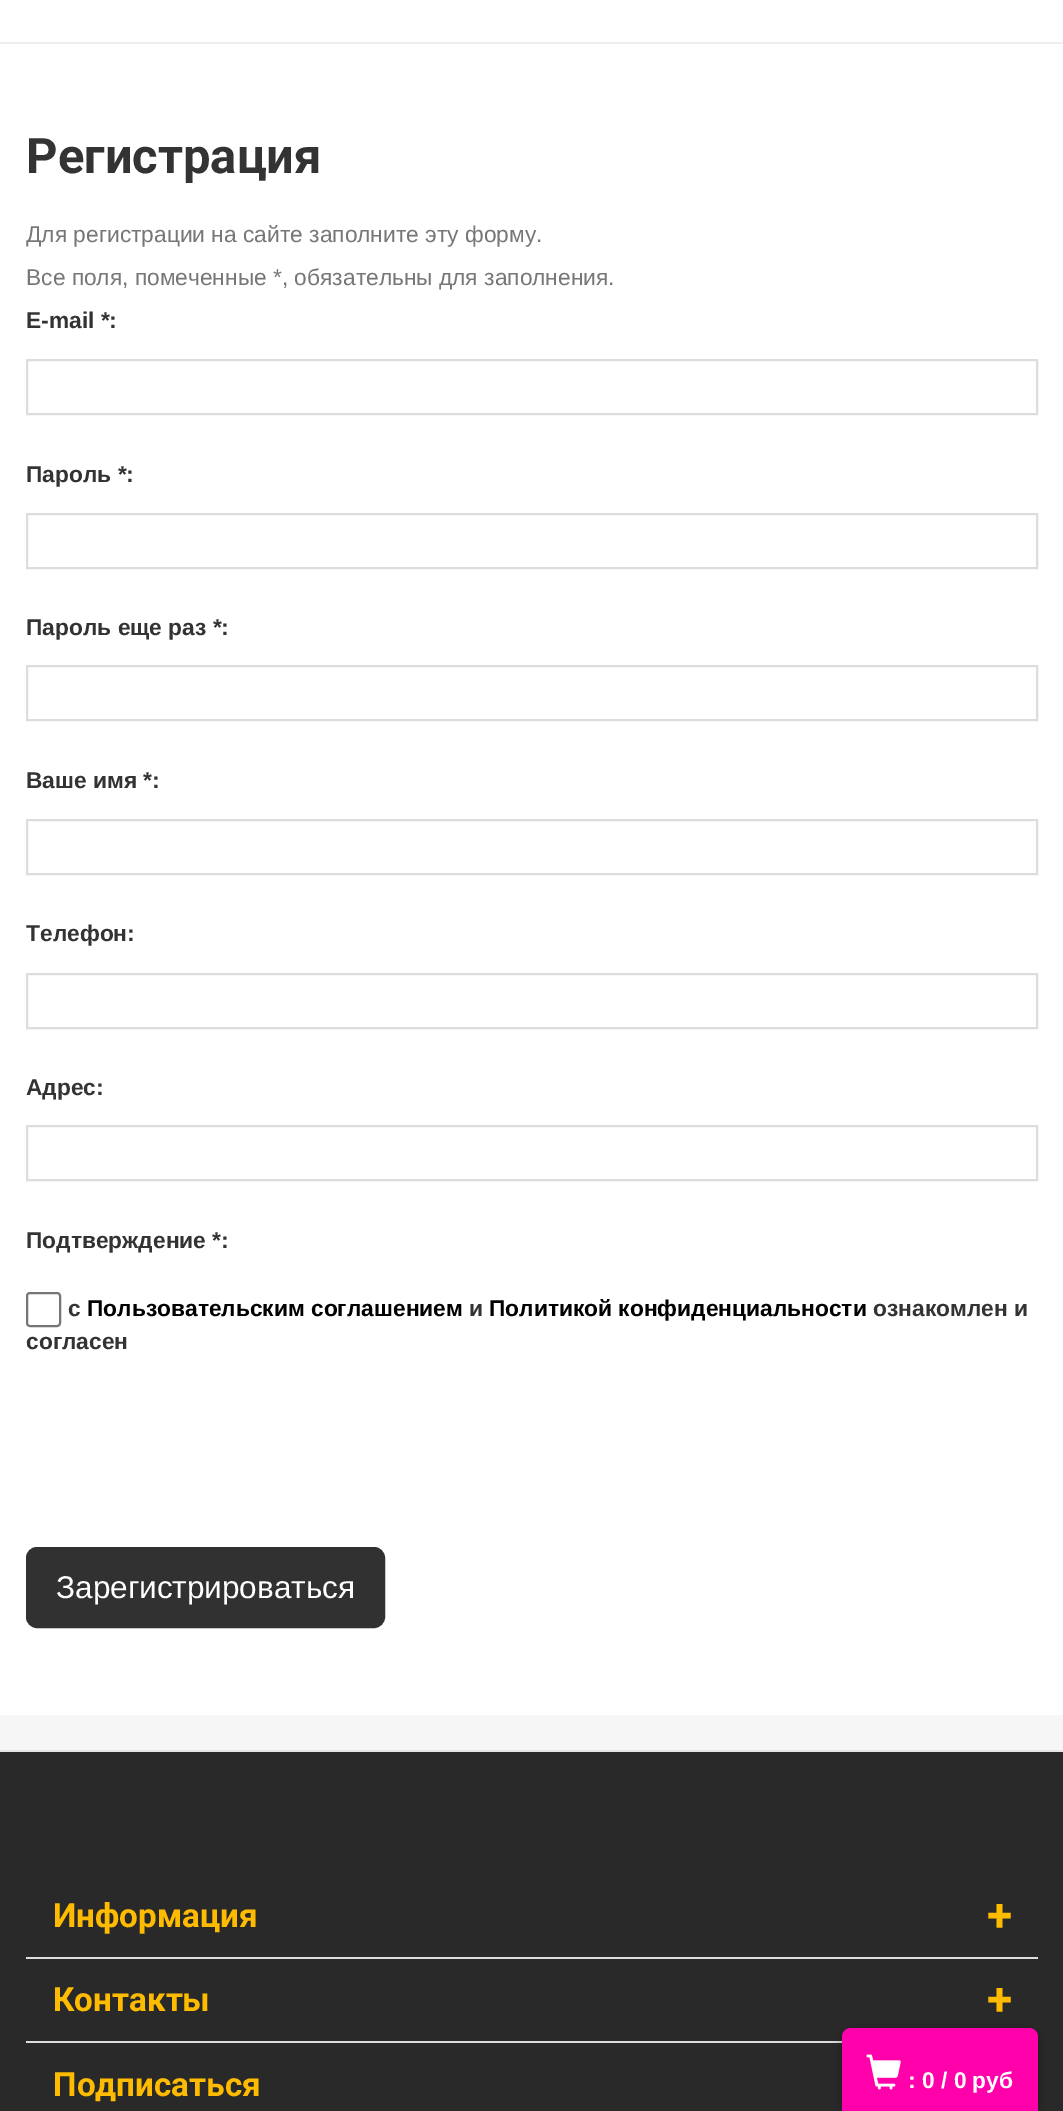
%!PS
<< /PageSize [1063 2111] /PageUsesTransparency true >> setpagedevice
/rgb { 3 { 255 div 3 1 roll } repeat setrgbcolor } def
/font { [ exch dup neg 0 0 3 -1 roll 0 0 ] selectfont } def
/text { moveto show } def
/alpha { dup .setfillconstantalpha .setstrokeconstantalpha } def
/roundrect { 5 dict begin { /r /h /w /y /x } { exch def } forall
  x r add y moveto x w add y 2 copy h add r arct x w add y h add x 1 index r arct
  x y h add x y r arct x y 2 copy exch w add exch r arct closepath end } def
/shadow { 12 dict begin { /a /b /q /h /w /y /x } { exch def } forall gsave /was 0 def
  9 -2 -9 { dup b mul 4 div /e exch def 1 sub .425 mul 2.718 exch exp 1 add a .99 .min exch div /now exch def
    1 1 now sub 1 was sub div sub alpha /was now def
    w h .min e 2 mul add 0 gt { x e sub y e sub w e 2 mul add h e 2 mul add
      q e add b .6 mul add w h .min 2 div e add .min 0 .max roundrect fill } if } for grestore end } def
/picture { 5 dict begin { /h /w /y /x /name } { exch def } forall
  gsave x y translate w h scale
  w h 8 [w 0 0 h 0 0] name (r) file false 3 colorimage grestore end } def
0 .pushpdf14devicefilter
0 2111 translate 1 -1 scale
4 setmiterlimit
41 41 41 rgb
0 0 1063 2111 rectfill
246 246 246 rgb
0 1715 1063 35 rectfill
255 255 255 rgb
0 0 1063 1715 rectfill
238 238 238 rgb
0 42 1063 2 rectfill
221 221 221 rgb
2 setlinewidth
27 360 1010 54 rectstroke
27 514 1010 54 rectstroke
27 666 1010 54 rectstroke
27 820 1010 54 rectstroke
27 974 1010 54 rectstroke
27 1126 1010 54 rectstroke
118 118 118 rgb
27 1293 33 33 3 roundrect stroke
49 49 49 rgb
27 1548 357 79 10 roundrect gsave fill grestore
stroke
230 230 230 rgb
0 1750 1063 2 rectfill
221 221 221 rgb
26 1957 1012 2 rectfill
26 2041 816 2 rectfill
0 0 0 rgb
840 2028 200 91 11 4.5 0.2 shadow
255 0 170 rgb
851 2028 moveto 178 0 rlineto 5 0 9 4 9 9 rcurveto 0 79 rlineto -196 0 rlineto 0 -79 rlineto 0 -5 4 -9 9 -9 rcurveto closepath fill
(img_01.rgb) 866 2054 35 36 picture
/Roboto-Bold 49 font
51 51 51 rgb
(Регистрация) 26 173 text
/LiberationSans-Regular 22.75 font
119 119 119 rgb
(Для регистрации на сайте заполните эту форму.) 26 242 text
(Все поля, помеченные *, обязательны для заполнения.) 26 285 text
/LiberationSans-Bold 22.75 font
51 51 51 rgb
(E-mail *:) 26 328 text
(Пароль *:) 26 482 text
(Пароль еще раз *:) 26 635 text
(Ваше имя *:) 26 788 text
(Телефон:) 26 941 text
(Адрес:) 26 1095 text
(Подтверждение *:) 26 1248 text
(с) 68 1316 text
0 0 0 rgb
(Пользовательским соглашением) 87 1316 text
51 51 51 rgb
(и) 469 1316 text
0 0 0 rgb
(Политикой конфиденциальности) 489 1316 text
51 51 51 rgb
(ознакомлен и) 873 1316 text
(согласен) 26 1349 text
/LiberationSans-Regular 31.5 font
255 255 255 rgb
(Зарегистрироваться) 56 1598 text
/Roboto-Bold 33.25 font
255 187 0 rgb
(Информация) 53 1927 text
/Roboto-Bold 46 font
(+) 987 1931 text
/Roboto-Bold 33.25 font
(Контакты) 53 2011 text
/Roboto-Bold 46 font
(+) 987 2015 text
/Roboto-Bold 33.25 font
(Подписаться) 53 2096 text
/LiberationSans-Bold 22.75 font
255 255 255 rgb
(: 0 / 0 руб) 908 2088 text
.poppdf14devicefilter showpage
